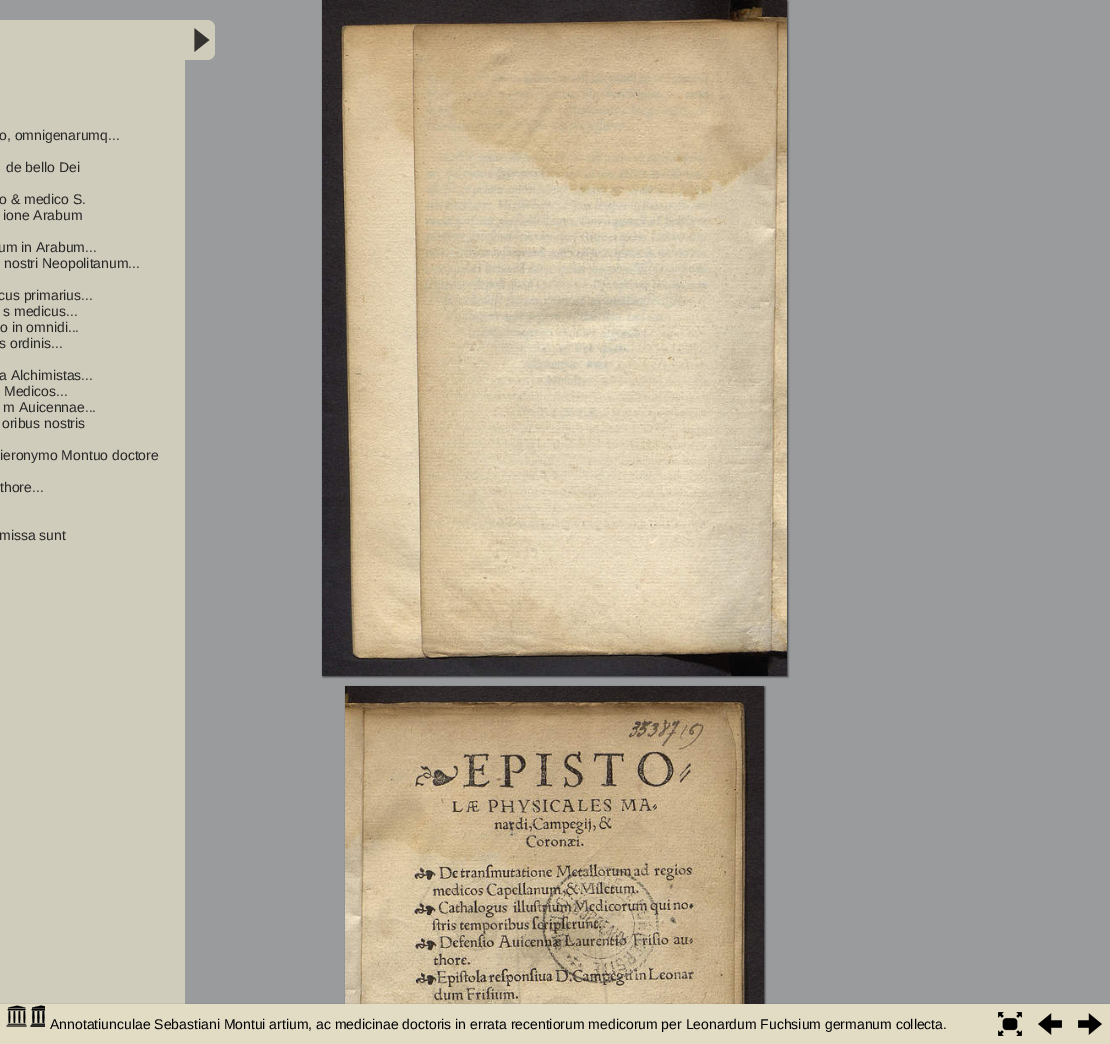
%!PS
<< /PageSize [1110 1044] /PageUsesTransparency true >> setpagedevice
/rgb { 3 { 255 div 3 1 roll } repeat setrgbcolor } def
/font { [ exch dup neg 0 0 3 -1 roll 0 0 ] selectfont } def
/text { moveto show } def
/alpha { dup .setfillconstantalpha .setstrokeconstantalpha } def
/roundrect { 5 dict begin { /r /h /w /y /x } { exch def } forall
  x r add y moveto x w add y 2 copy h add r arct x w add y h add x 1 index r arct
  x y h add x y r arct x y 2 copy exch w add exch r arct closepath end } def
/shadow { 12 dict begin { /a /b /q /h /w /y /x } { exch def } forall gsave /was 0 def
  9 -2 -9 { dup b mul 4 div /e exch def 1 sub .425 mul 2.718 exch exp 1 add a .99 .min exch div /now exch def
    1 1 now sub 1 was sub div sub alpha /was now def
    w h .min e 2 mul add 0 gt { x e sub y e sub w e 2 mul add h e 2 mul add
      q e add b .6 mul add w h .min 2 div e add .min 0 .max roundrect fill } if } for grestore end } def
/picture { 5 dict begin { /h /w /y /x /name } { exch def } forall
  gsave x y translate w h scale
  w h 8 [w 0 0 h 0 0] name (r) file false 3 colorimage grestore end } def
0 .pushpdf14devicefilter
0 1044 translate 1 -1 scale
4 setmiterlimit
154 155 157 rgb
0 0 1110 1044 rectfill
208 204 187 rgb
185 20 moveto 22 0 rlineto 4.5 0 8 3.5 8 8 rcurveto 0 24 rlineto 0 4.5 -3.5 8 -8 8 rcurveto -22 0 rlineto closepath fill
(img_01.rgb) 194 28 16 24 picture
0 20 185 984 rectfill
51 51 51 rgb
323 1 465 676 0 1 1 shadow
(img_02.rgb) 322 0 465 676 picture
346 687 419 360 0 1 1 shadow
(img_03.rgb) 345 686 419 318 picture
1 1005 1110 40 0 1 1 shadow
226 220 197 rgb
0 1004 1110 40 rectfill
(img_04.rgb) 6 1005 39 22 picture
(img_05.rgb) 998 1012 24 24 picture
(img_06.rgb) 1038 1013 24 22 picture
(img_07.rgb) 1078 1013 24 22 picture
/LiberationSans-Regular 14 font
39 39 39 rgb
(o, omnigenarumq...) -1 140 text
(de bello Dei) 6 172 text
(o & medico S.) -1 204 text
(ione Arabum) 3 220 text
(um in Arabum...) -2 252 text
(nostri Neopolitanum...) 4 268 text
(cus primarius...) -2 300 text
(s medicus...) 3 316 text
(o in omnidi...) 0 332 text
(s ordinis...) -1 348 text
(a Alchimistas...) -1 380 text
(Medicos...) 4 396 text
(m Auicennae...) 3 412 text
(oribus nostris) 2 428 text
(ieronymo Montuo doctore) 0 460 text
(thore...) 0 492 text
(missa sunt) -1 540 text
0 0 0 rgb
(Annotatiunculae Sebastiani Montui artium, ac medicinae doctoris in errata recentiorum medicorum per Leonardum Fuchsium germanum collecta.) 50 1029 text
.poppdf14devicefilter showpage
